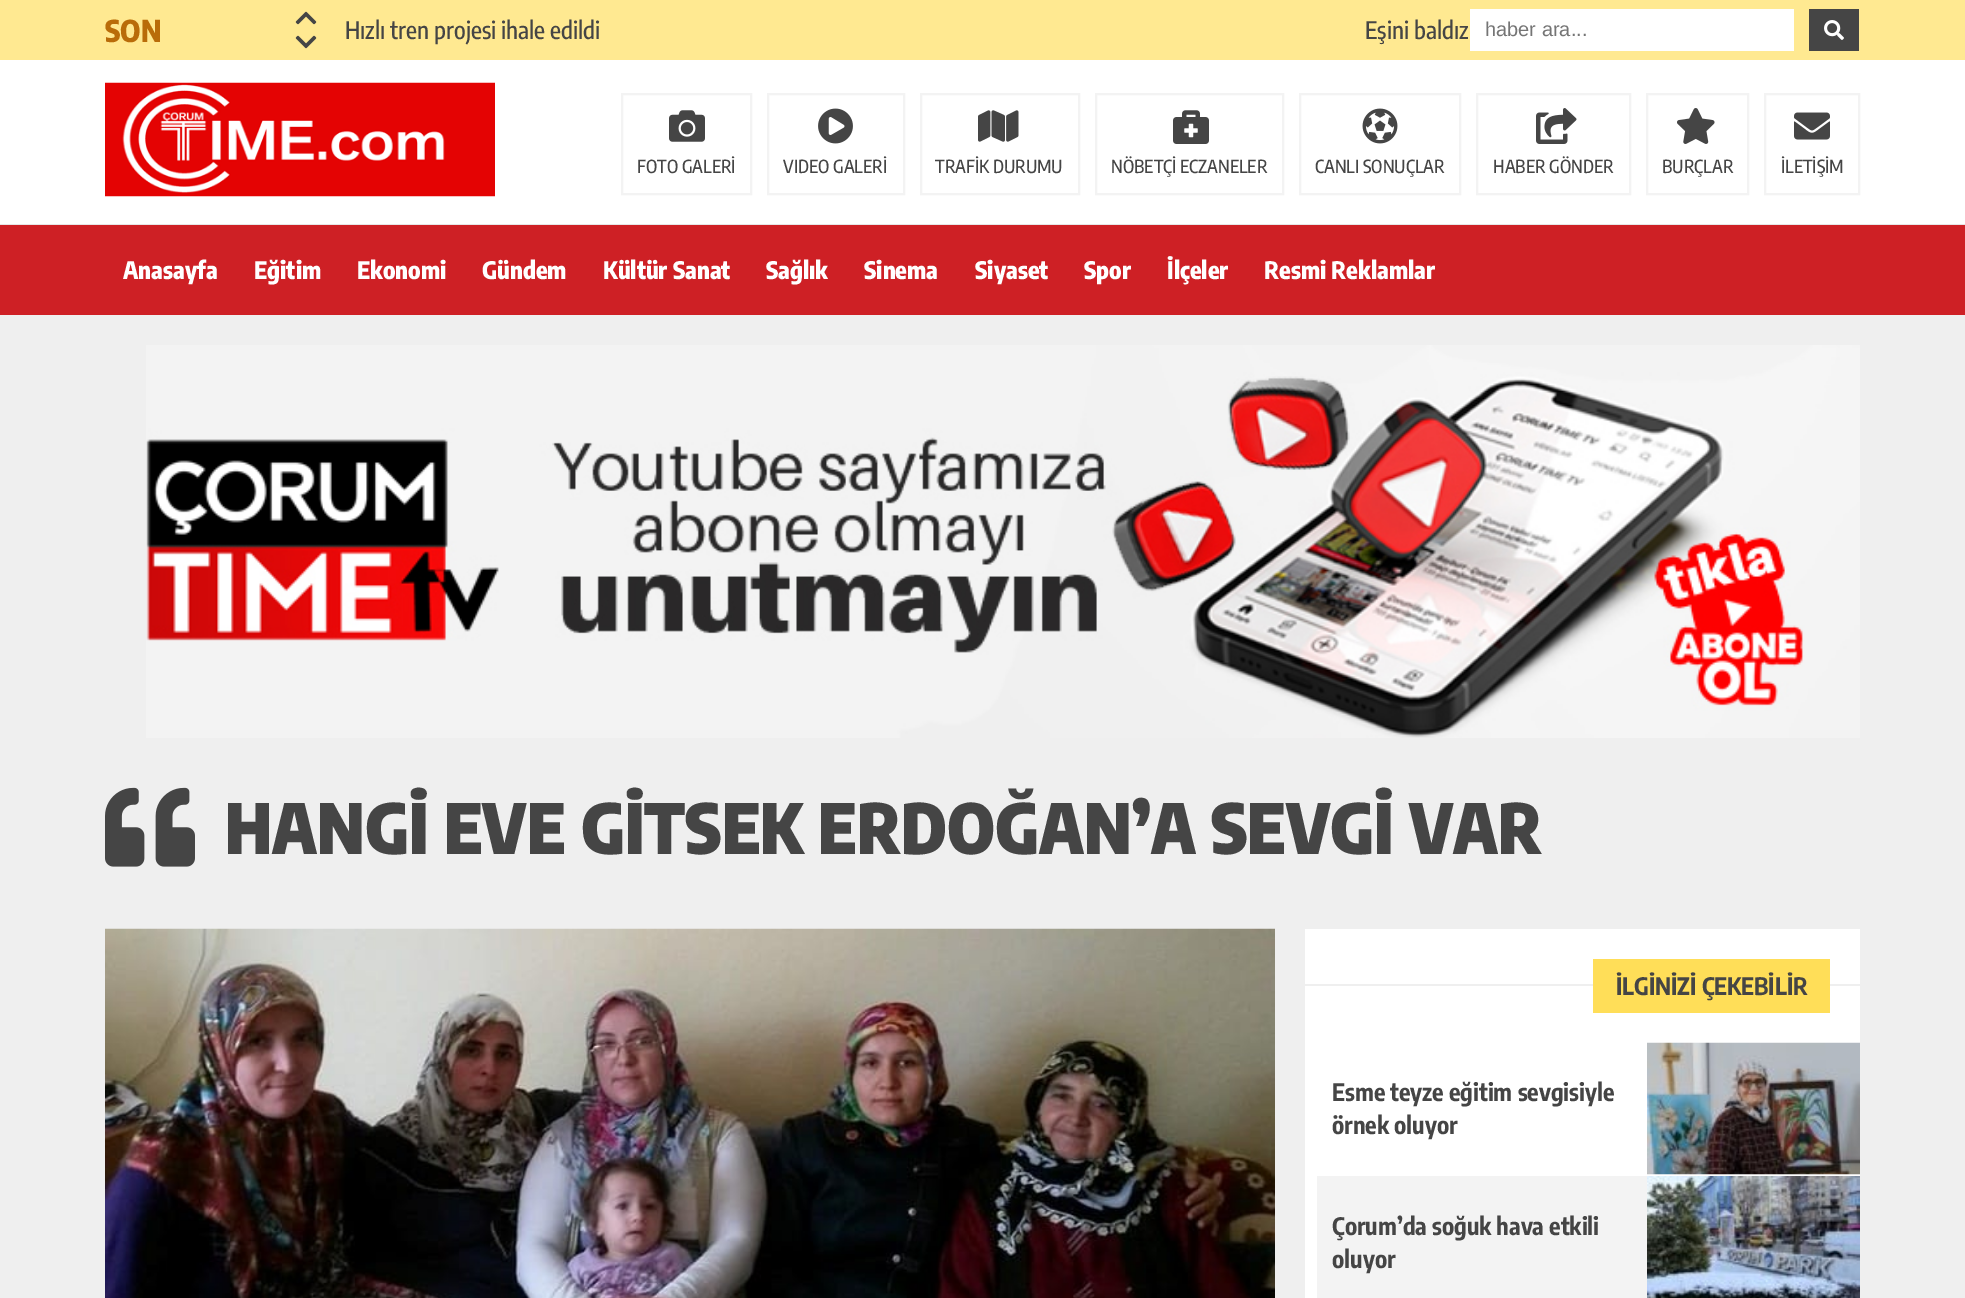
%!PS
<< /PageSize [1965 1298] >> setpagedevice
/rgb { 3 { 255 div 3 1 roll } repeat setrgbcolor } def
/font { [ exch dup neg 0 0 3 -1 roll 0 0 ] selectfont } def
/text { moveto show } def
/picture { 5 dict begin { /h /w /y /x /name } { exch def } forall
  gsave x y translate w h scale
  w h 8 [w 0 0 h 0 0] name (r) file false 3 colorimage grestore end } def
0 1298 translate 1 -1 scale
4 setmiterlimit
239 239 239 rgb
0 0 1965 1298 rectfill
255 233 145 rgb
0 0 1965 60 rectfill
(img_01.rgb) 295 11 22 14 picture
(img_02.rgb) 295 35 22 14 picture
255 255 255 rgb
1470 9 324 42 rectfill
69 69 69 rgb
1809 9 50 42 rectfill
(img_03.rgb) 1824 20 20 20 picture
255 255 255 rgb
0 60 1965 164 rectfill
230 230 230 rgb
0 224 1965 1 rectfill
(img_04.rgb) 105 82 390 115 picture
(img_05.rgb) 669 110 36 32 picture
243 243 243 rgb
2 setlinewidth
622 94 129 100 rectstroke
(img_06.rgb) 818 108 35 36 picture
768 94 136 100 rectstroke
(img_07.rgb) 978 110 41 32 picture
921 94 158 100 rectstroke
(img_08.rgb) 1173 110 36 34 picture
1096 94 187 100 rectstroke
(img_09.rgb) 1362 108 36 36 picture
1300 94 160 100 rectstroke
(img_10.rgb) 1536 108 41 36 picture
1477 94 153 100 rectstroke
(img_11.rgb) 1677 108 38 36 picture
1647 94 101 100 rectstroke
(img_12.rgb) 1794 112 36 28 picture
1765 94 94 100 rectstroke
206 32 37 rgb
0 225 1965 90 rectfill
(img_13.rgb) 146 345 1714 393 picture
(img_14.rgb) 105 787 90 80 picture
(img_15.rgb) 105 928 1170 370 picture
255 255 255 rgb
1305 929 555 247 rectfill
239 239 239 rgb
1305 984 555 2 rectfill
255 222 88 rgb
1593 959 237 54 rectfill
(img_16.rgb) 1647 1042 213 133 picture
243 243 243 rgb
1317 1176 330 122 rectfill
255 255 255 rgb
1305 1176 12 122 rectfill
(img_17.rgb) 1647 1176 213 122 picture
/EncodeSansCondensed-ExtraBold 30 font
185 108 9 rgb
(SON) 105 42 text
/EncodeSansCondensed-Medium 24 font
69 69 69 rgb
(Hızlı tren projesi ihale edildi) 345 39 text
(Eşini baldız) 1365 39 text
/LiberationSans-Regular 20 font
117 117 117 rgb
(haber ara...) 1485 36 text
/EncodeSansCondensed-Medium 18 font
69 69 69 rgb
(FOTO GALERİ) 637 173 text
(VIDEO GALERİ) 783 173 text
(TRAFİK DURUMU) 935 173 text
(NÖBETÇİ ECZANELER) 1111 173 text
(CANLI SONUÇLAR) 1315 173 text
(HABER GÖNDER) 1493 173 text
(BURÇLAR) 1662 173 text
(İLETİŞİM) 1781 173 text
/EncodeSansCondensed-ExtraBold 24 font
255 255 255 rgb
(Anasayfa) 123 279 text
(Eğitim) 254 279 text
(Ekonomi) 357 279 text
(Gündem) 482 279 text
(Kültür Sanat) 603 279 text
(Sağlık) 766 279 text
(Sinema) 864 279 text
(Siyaset) 975 279 text
(Spor) 1084 279 text
(İlçeler) 1167 279 text
(Resmi Reklamlar) 1264 279 text
/EncodeSansCondensed-Black 69 font
69 69 69 rgb
(HANGİ EVE GİTSEK ERDOĞAN’A SEVGİ VAR) 225 854 text
/EncodeSansCondensed-Bold 24 font
(İLGİNİZİ ÇEKEBİLİR) 1616 995 text
(Esme teyze eğitim sevgisiyle) 1332 1101 text
(örnek oluyor) 1332 1134 text
(Çorum’da soğuk hava etkili) 1332 1235 text
(oluyor) 1332 1268 text
showpage
